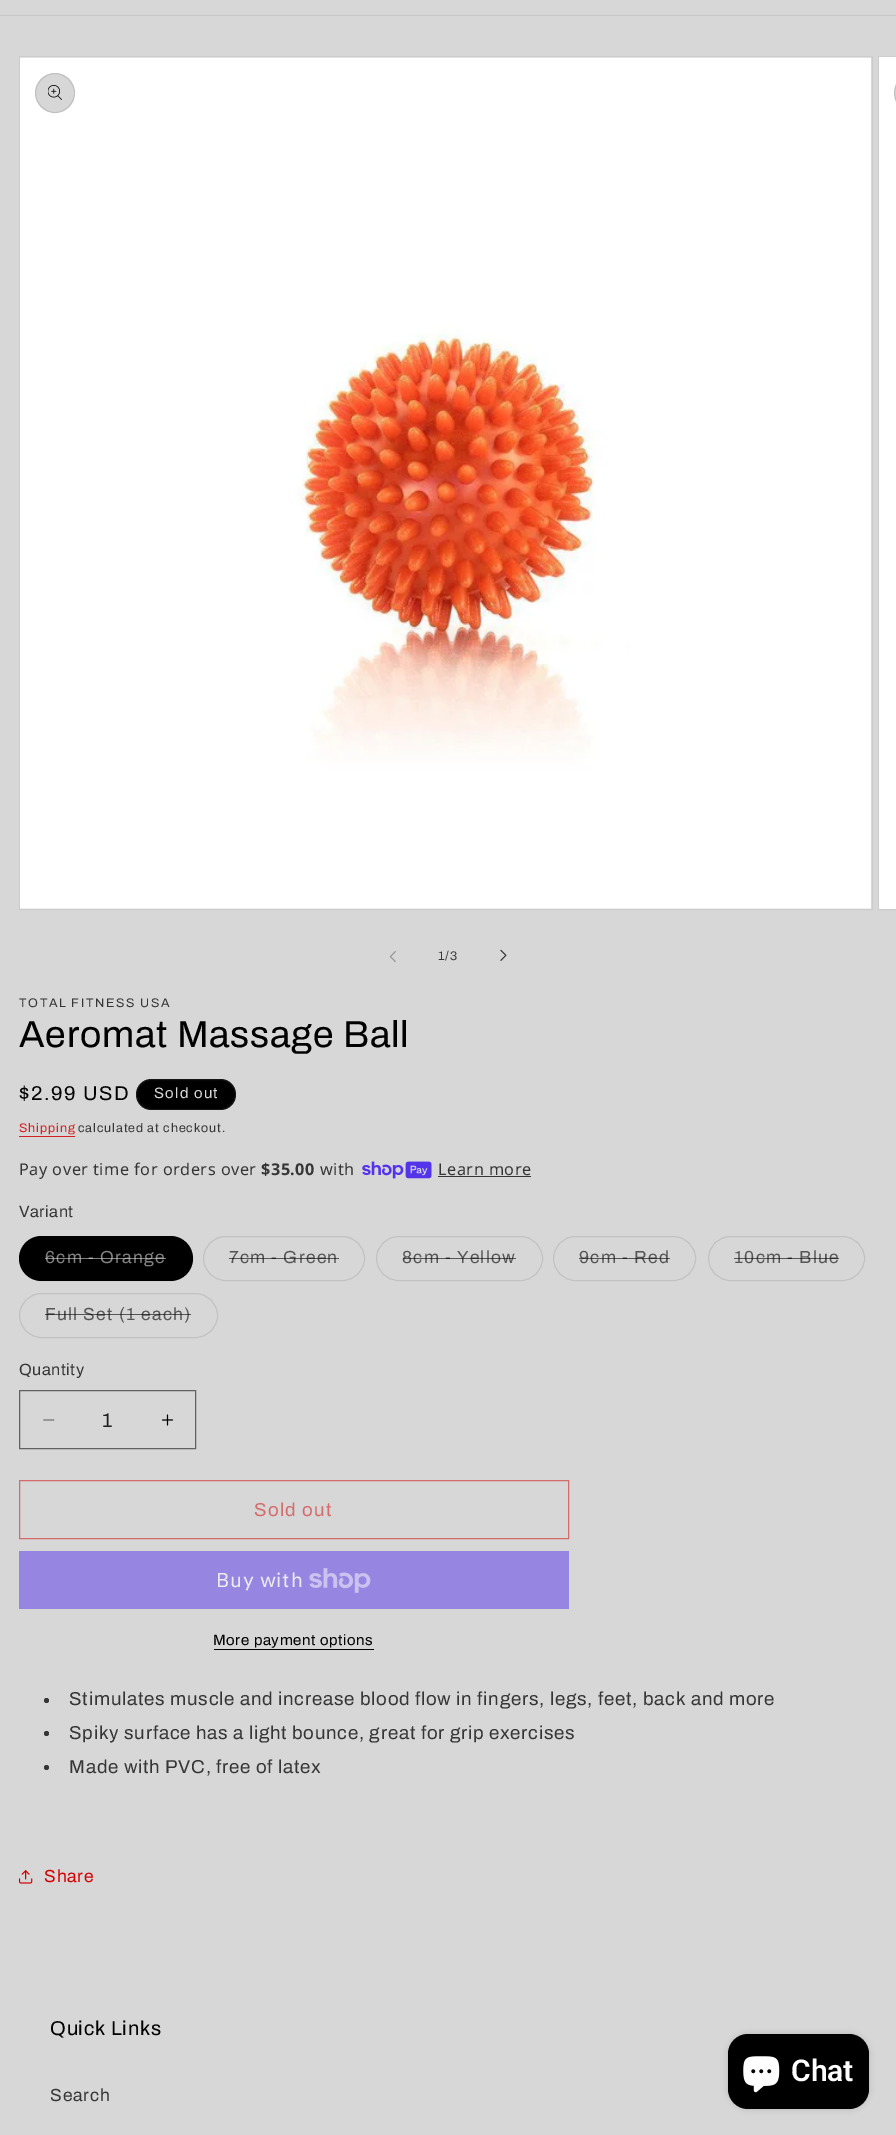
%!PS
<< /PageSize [896 2135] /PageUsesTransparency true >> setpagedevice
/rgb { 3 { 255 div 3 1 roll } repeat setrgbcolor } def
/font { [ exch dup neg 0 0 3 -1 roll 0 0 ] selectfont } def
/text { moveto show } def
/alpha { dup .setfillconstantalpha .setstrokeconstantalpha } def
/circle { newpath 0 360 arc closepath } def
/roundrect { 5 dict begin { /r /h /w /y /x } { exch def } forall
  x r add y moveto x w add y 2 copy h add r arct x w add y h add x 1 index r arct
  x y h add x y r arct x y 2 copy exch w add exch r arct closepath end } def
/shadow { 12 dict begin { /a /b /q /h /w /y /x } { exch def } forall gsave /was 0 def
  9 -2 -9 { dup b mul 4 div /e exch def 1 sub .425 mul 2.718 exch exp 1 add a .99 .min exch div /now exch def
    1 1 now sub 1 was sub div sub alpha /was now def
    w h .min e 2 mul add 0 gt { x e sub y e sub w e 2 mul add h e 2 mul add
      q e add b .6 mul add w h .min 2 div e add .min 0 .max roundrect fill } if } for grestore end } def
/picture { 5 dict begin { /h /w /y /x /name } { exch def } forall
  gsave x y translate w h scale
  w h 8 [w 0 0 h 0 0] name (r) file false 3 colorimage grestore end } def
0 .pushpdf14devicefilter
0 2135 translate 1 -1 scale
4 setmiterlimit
215 215 215 rgb
0 0 896 2135 rectfill
198 198 198 rgb
0 15 896 1 rectfill
204 204 204 rgb
19.5 56.5 853 853 rectstroke
(img_01.rgb) 20 57 851 852 picture
215 215 215 rgb
55 93 20 circle fill
0.1 alpha
0 0 0 rgb
55 93 19.5 circle stroke
1 alpha
(img_02.rgb) 48 85 14 15 picture
204 204 204 rgb
878.5 56.5 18 853 rectstroke
255 255 255 rgb
879 57 17 852 rectfill
215 215 215 rgb
914 73 moveto -18 0 rlineto 0 40 rlineto 18 0 rlineto -11 0 -20 -9 -20 -20 rcurveto 0 -11 9 -20 20 -20 rcurveto closepath fill
0.1 alpha
0 0 0 rgb
894.5 73.5 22 39 19.5 roundrect stroke
1 alpha
(img_03.rgb) 389 951 7 12 picture
(img_04.rgb) 500 949 7 12 picture
136 1079 100 31 15.5 roundrect fill
0.1 alpha
215 215 215 rgb
136.5 1079.5 99 30 15 roundrect stroke
1 alpha
210 33 32 rgb
19 1136 56 1 rectfill
(img_05.rgb) 362 1161 70 18 picture
54 54 54 rgb
438 1176 93 1 rectfill
0 0 0 rgb
19 1236 174 45 22.5 roundrect fill
0.1 alpha
19.5 1236.5 173 44 22 roundrect stroke
1 alpha
194 194 194 rgb
203.5 1236.5 161 44 22 roundrect stroke
376.5 1236.5 166 44 22 roundrect stroke
553.5 1236.5 142 44 22 roundrect stroke
708.5 1236.5 156 44 22 roundrect stroke
19.5 1293.5 198 44 22 roundrect stroke
(img_06.rgb) 43 1419 12 2 picture
(img_07.rgb) 162 1414 12 12 picture
97 97 97 rgb
19.5 1390.5 176 58 rectstroke
212 108 108 rgb
19.5 1480.5 549 58 rectstroke
150 133 225 rgb
19 1551 550 58 rectfill
(img_08.rgb) 309 1568 62 25 picture
0 0 0 rgb
214 1649 160 1 rectfill
54 54 54 rgb
46.5 1700.5 2.5 circle fill
46.5 1733.5 2.5 circle fill
46.5 1767.5 2.5 circle fill
(img_09.rgb) 18 1870 15 14 picture
0 0 0 rgb
728 2034 141 75 20 3 0.15 shadow
728 2034 141 75 20 roundrect fill
(img_10.rgb) 743 2056 37 37 picture
/Archivo-Regular 12.5 font
54 54 54 rgb
438 960 moveto 0.9 0 (1/3) ashow
19 1007 moveto 1.6 0 (TOTAL FITNESS USA) ashow
/Archivo-Regular 37.5 font
0 0 0 rgb
19 1047 moveto 0.75 0 (Aeromat Massage Ball) ashow
/Archivo-Regular 20 font
19 1100 moveto 1.6 0 ($2.99 USD) ashow
/Archivo-Regular 15 font
215 215 215 rgb
154 1098 moveto 1.25 0 (Sold out) ashow
/Archivo-Regular 12.5 font
210 33 32 rgb
19 1132 moveto 0.9 0 (Shipping) ashow
54 54 54 rgb
78 1132 moveto 0.9 0 (calculated at checkout.) ashow
/NotoSans-Regular 16.25 font
19 1175 moveto 0.5 0 (Pay over time for orders over) ashow
/NotoSans-Bold 16.25 font
261 1175 moveto 0.5 0 ($35.00) ashow
/NotoSans-Regular 16.25 font
320 1175 moveto 0.5 0 (with) ashow
438 1175 moveto 0.5 0 (Learn more) ashow
/Archivo-Regular 16.25 font
19 1217 moveto 0.5 0 (Variant) ashow
/Archivo-Regular 17.5 font
129 129 129 rgb
45 1263 moveto 1.25 0 (6cm - Orange) ashow
0.6 alpha
215 215 215 rgb
45 1258 121 1 rectfill
1 alpha
86 86 86 rgb
229 1263 moveto 1.25 0 (7cm - Green) ashow
0.6 alpha
0 0 0 rgb
229 1258 110 1 rectfill
1 alpha
86 86 86 rgb
402 1263 moveto 1.25 0 (8cm - Yellow) ashow
0.6 alpha
0 0 0 rgb
403 1258 113 1 rectfill
1 alpha
86 86 86 rgb
579 1263 moveto 1.25 0 (9cm - Red) ashow
0.6 alpha
0 0 0 rgb
579 1258 91 1 rectfill
1 alpha
86 86 86 rgb
734 1263 moveto 1.25 0 (10cm - Blue) ashow
0.6 alpha
0 0 0 rgb
734 1258 105 1 rectfill
1 alpha
86 86 86 rgb
45 1320 moveto 1.25 0 (Full Set \(1 each\)) ashow
0.6 alpha
0 0 0 rgb
45 1314 146 1 rectfill
/Archivo-Regular 16.25 font
1 alpha
54 54 54 rgb
19 1375 moveto 0.5 0 (Quantity) ashow
/Archivo-Regular 20 font
32 32 32 rgb
(1) 102 1427 text
/Archivo-Regular 18.75 font
212 108 108 rgb
254 1516 moveto 1.25 0 (Sold out) ashow
/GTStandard-Regular 20 font
235 235 235 rgb
216 1587 moveto 0.75 0 (Buy with) ashow
/Archivo-Regular 15 font
0 0 0 rgb
213 1645 moveto 0.6 0 (More payment options) ashow
/Archivo-Regular 18.75 font
54 54 54 rgb
69 1705 moveto 0.75 0 (Stimulates muscle and increase blood flow in fingers, legs, feet, back and more) ashow
69 1739 moveto 0.75 0 (Spiky surface has a light bounce, great for grip exercises) ashow
69 1773 moveto 0.75 0 (Made with PVC, free of latex) ashow
/Archivo-Regular 17.5 font
209 1 0 rgb
44 1882 moveto 0.75 0 (Share) ashow
/Archivo-Regular 20 font
0 0 0 rgb
50 2035 moveto 0.75 0 (Quick Links) ashow
/Archivo-Regular 17.5 font
54 54 54 rgb
50 2101 moveto 0.75 0 (Search) ashow
/Roboto-SemiBold 30 font
255 255 255 rgb
(Chat) 791 2081 text
.poppdf14devicefilter showpage
